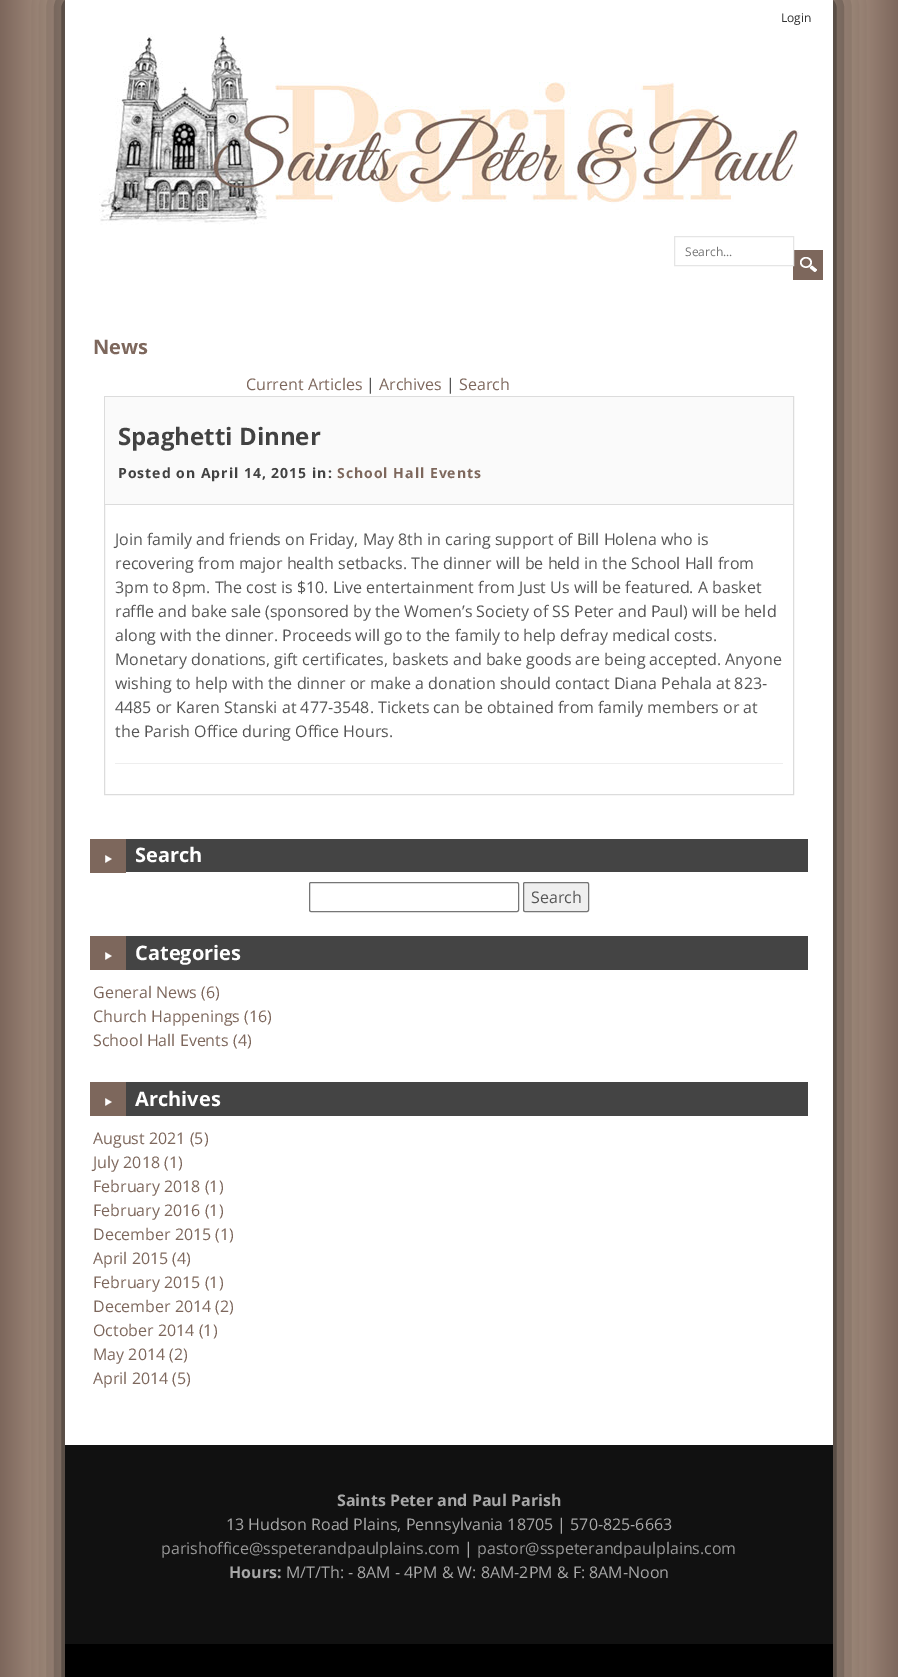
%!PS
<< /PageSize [898 1677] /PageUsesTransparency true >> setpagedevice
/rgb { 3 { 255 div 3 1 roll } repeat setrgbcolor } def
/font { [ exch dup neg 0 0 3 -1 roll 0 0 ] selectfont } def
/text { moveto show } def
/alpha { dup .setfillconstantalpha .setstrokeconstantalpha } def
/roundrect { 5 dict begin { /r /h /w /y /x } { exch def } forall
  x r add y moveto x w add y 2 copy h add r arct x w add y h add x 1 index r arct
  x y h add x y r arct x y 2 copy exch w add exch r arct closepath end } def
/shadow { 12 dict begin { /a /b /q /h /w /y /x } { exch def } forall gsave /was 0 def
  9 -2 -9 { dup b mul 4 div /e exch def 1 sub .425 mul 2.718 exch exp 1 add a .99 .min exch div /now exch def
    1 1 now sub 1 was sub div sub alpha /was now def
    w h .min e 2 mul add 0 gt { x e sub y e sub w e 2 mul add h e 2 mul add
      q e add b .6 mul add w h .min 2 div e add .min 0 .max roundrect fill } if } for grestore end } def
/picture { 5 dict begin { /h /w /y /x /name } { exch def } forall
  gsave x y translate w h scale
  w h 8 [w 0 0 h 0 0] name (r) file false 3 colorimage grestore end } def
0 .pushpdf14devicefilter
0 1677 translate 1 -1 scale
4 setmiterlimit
255 255 255 rgb
0 0 898 1677 rectfill
gsave 0 0 moveto 898 0 rlineto 0 1677 rlineto -898 0 rlineto closepath clip newpath
<< /ShadingType 2 /ColorSpace /DeviceRGB /Coords [898 869 0 869] /Extend [true true] /Function << /FunctionType 3 /Domain [0 1] /Functions [<< /FunctionType 2 /Domain [0 1] /C0 [0.49 0.404 0.361] /C1 [0.996 0.902 0.808] /N 1 >> << /FunctionType 2 /Domain [0 1] /C0 [0.996 0.902 0.808] /C1 [0.996 0.902 0.808] /N 1 >> << /FunctionType 2 /Domain [0 1] /C0 [0.996 0.902 0.808] /C1 [0.49 0.404 0.361] /N 1 >>] /Bounds [0.17 0.83] /Encode [0 1 0 1 0 1] >> >> shfill grestore
0 0 0 rgb
65 0 768 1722 0 15 1 shadow
255 255 255 rgb
65 0 768 1445 rectfill
(img_01.rgb) 99 34 700 191 picture
125 103 92 rgb
793 250 30 30 rectfill
229 229 229 rgb
674.5 236.5 119 29 rectstroke
(img_02.rgb) 800 257 17 15 picture
220 220 220 rgb
104.5 396.5 689 398 rectstroke
250 250 250 rgb
105 397 688 107 rectfill
220 220 220 rgb
105 504 688 1 rectfill
238 238 238 rgb
115 763 668 1 rectfill
68 68 68 rgb
126 839 682 33 rectfill
125 103 92 rgb
90 839 36 34 rectfill
(img_03.rgb) 105 855 7 8 picture
118 118 118 rgb
309.5 882.5 209 29 1.5 roundrect stroke
239 239 239 rgb
523.5 882.5 65 29 1.5 roundrect gsave fill grestore
118 118 118 rgb
stroke
68 68 68 rgb
126 936 682 34 rectfill
125 103 92 rgb
90 936 36 34 rectfill
(img_03.rgb) 105 952 7 8 picture
68 68 68 rgb
126 1082 682 34 rectfill
125 103 92 rgb
90 1082 36 34 rectfill
(img_03.rgb) 105 1098 7 8 picture
17 17 17 rgb
65 1445 768 199 rectfill
0 0 0 rgb
65 1644 768 33 rectfill
/OpenSans-Regular 12 font
51 51 51 rgb
(Login) 781 22 text
117 117 117 rgb
(Search...) 685 256 text
/OpenSans-Bold 20 font
125 103 92 rgb
(News) 93 354 text
/OpenSans-Regular 16 font
(Current Articles) 246 390 text
85 85 85 rgb
(|) 366 390 text
125 103 92 rgb
(Archives) 379 390 text
85 85 85 rgb
(|) 446 390 text
125 103 92 rgb
(Search) 459 390 text
/OpenSans-Bold 24 font
66 66 66 rgb
(Spaghetti Dinner) 118 445 text
/OpenSans-Bold 14 font
118 478 moveto 1 0 (Posted on April 14, 2015 in:) ashow
125 103 92 rgb
337 478 moveto 1 0 (School Hall Events) ashow
/OpenSans-Regular 16 font
85 85 85 rgb
(Join family and friends on Friday, May 8th in caring support of Bill Holena who is) 115 545 text
(recovering from major health setbacks. The dinner will be held in the School Hall from) 115 569 text
(3pm to 8pm. The cost is $10. Live entertainment from Just Us will be featured. A basket) 115 593 text
(raffle and bake sale \(sponsored by the Women’s Society of SS Peter and Paul\) will be held) 115 617 text
(along with the dinner. Proceeds will go to the family to help defray medical costs.) 115 641 text
(Monetary donations, gift certificates, baskets and bake goods are being accepted. Anyone) 115 665 text
(wishing to help with the dinner or make a donation should contact Diana Pehala at 823-) 115 689 text
(4485 or Karen Stanski at 477-3548. Tickets can be obtained from family members or at) 115 713 text
(the Parish Office during Office Hours.) 115 737 text
/OpenSans-Bold 20 font
255 255 255 rgb
(Search) 135 862 text
/OpenSans-Regular 16 font
85 85 85 rgb
(Search) 531 903 text
/OpenSans-Bold 20 font
255 255 255 rgb
(Categories) 135 960 text
/OpenSans-Regular 16 font
125 103 92 rgb
(General News \(6\)) 93 998 text
(Church Happenings \(16\)) 93 1022 text
(School Hall Events \(4\)) 93 1046 text
/OpenSans-Bold 20 font
255 255 255 rgb
(Archives) 135 1106 text
/OpenSans-Regular 16 font
125 103 92 rgb
(August 2021 \(5\)) 93 1144 text
(July 2018 \(1\)) 93 1168 text
(February 2018 \(1\)) 93 1192 text
(February 2016 \(1\)) 93 1216 text
(December 2015 \(1\)) 93 1240 text
(April 2015 \(4\)) 93 1264 text
(February 2015 \(1\)) 93 1288 text
(December 2014 \(2\)) 93 1312 text
(October 2014 \(1\)) 93 1336 text
(May 2014 \(2\)) 93 1360 text
(April 2014 \(5\)) 93 1384 text
/OpenSans-Bold 16 font
168 168 168 rgb
(Saints Peter and Paul Parish) 337 1506 text
/OpenSans-Regular 16 font
(13 Hudson Road Plains, Pennsylvania 18705 | 570-825-6663) 226 1530 text
153 153 153 rgb
(parishoffice@sspeterandpaulplains.com) 161 1554 text
168 168 168 rgb
(|) 464 1554 text
153 153 153 rgb
(pastor@sspeterandpaulplains.com) 477 1554 text
/OpenSans-Bold 16 font
168 168 168 rgb
(Hours:) 229 1578 text
/OpenSans-Regular 16 font
(M/T/Th: - 8AM - 4PM & W: 8AM-2PM & F: 8AM-Noon) 286 1578 text
.poppdf14devicefilter showpage
